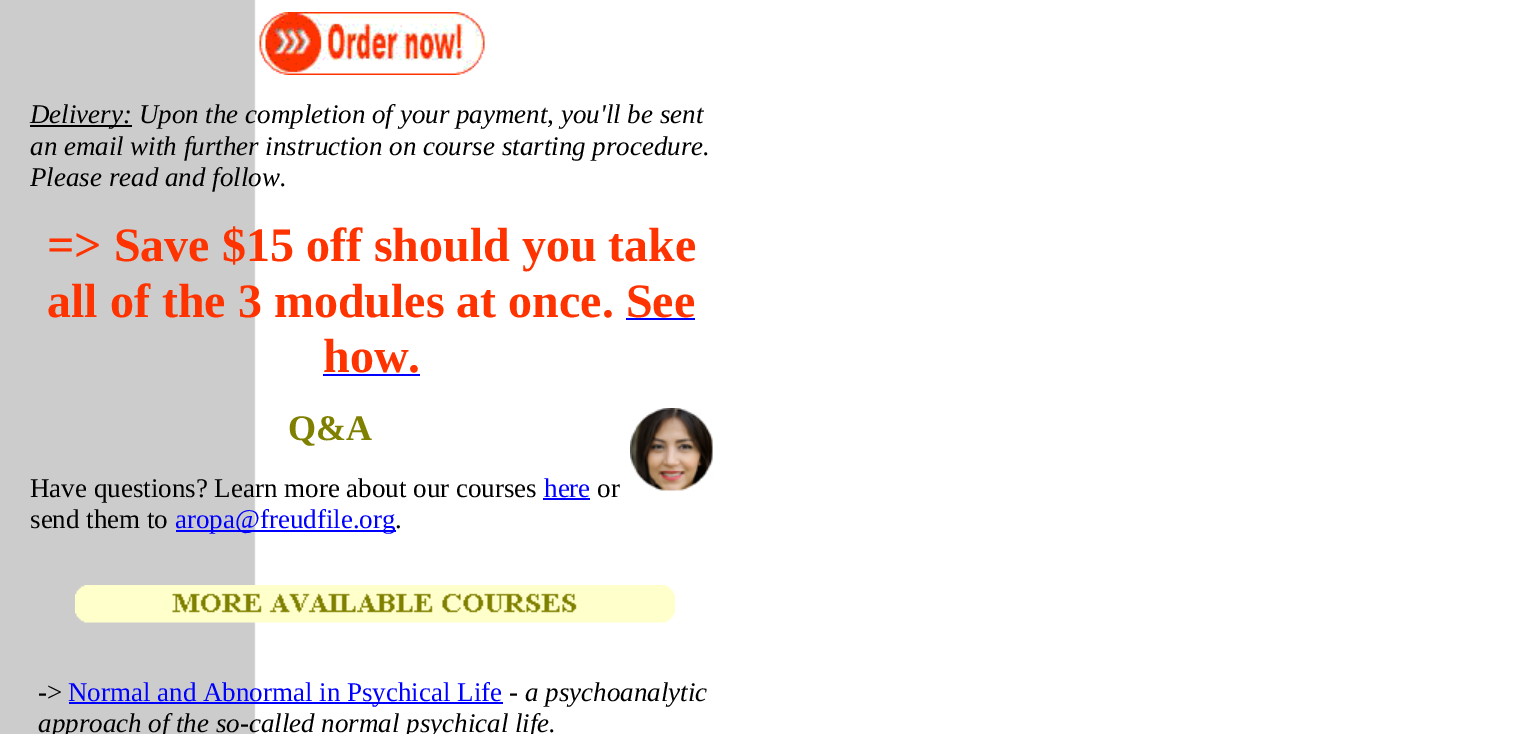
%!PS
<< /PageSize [1527 734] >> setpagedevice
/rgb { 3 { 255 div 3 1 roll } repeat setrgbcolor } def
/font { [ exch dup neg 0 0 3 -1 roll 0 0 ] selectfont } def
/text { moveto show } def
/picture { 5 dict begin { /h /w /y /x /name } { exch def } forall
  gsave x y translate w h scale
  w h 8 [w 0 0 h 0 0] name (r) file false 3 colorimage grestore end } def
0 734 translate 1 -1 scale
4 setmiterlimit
255 255 255 rgb
0 0 1527 734 rectfill
(img_01.rgb) 0 0 256 734 picture
(img_02.rgb) 259 12 226 63 picture
0 0 0 rgb
30 125 102 2 rectfill
0 0 255 rgb
626 318 69 2 rectfill
323 374 97 2 rectfill
(img_03.rgb) 630 408 83 83 picture
543 498 47 2 rectfill
176 530 220 2 rectfill
(img_04.rgb) 75 585 600 38 picture
69 702 434 2 rectfill
/LiberationSerif-Italic 27 font
0 0 0 rgb
(Delivery: Upon the completion of your payment, you'll be sent) 30 123 text
(an email with further instruction on course starting procedure.) 30 155 text
(Please read and follow.) 30 186 text
/LiberationSerif-Bold 48 font
255 51 0 rgb
(=> Save $15 off should you take) 47 261 text
(all of the 3 modules at once. See) 47 317 text
(how.) 323 372 text
/LiberationSerif-Bold 36 font
128 128 0 rgb
(Q&A) 288 440 text
/LiberationSerif-Regular 27 font
0 0 0 rgb
(Have questions? Learn more about our courses) 30 497 text
0 0 255 rgb
(here) 544 497 text
0 0 0 rgb
(or) 597 497 text
(send them to) 30 528 text
0 0 255 rgb
(aropa@freudfile.org) 175 528 text
0 0 0 rgb
(.) 395 528 text
(->) 38 701 text
0 0 255 rgb
(Normal and Abnormal in Psychical Life) 68 701 text
/LiberationSerif-Bold 27 font
0 0 0 rgb
(-) 509 701 text
/LiberationSerif-Italic 27 font
(a psychoanalytic) 525 701 text
(approach of the so-called normal psychical life.) 38 732 text
showpage
